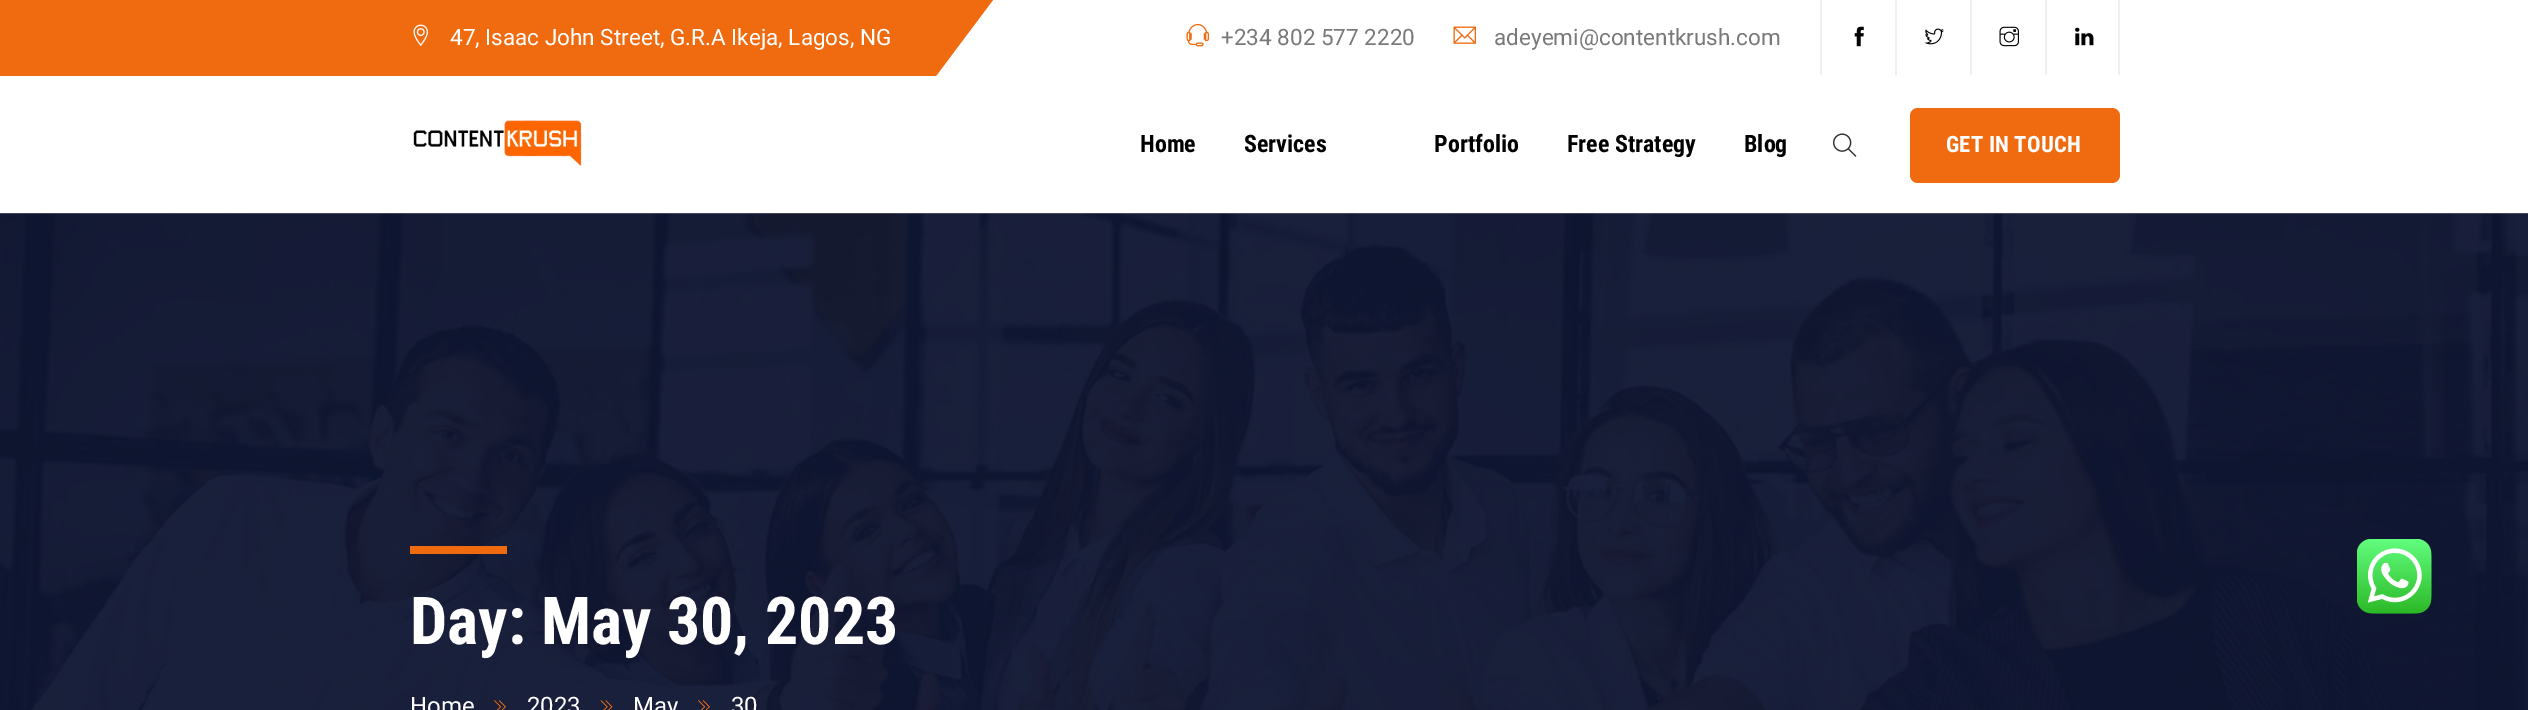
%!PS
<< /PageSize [2528 710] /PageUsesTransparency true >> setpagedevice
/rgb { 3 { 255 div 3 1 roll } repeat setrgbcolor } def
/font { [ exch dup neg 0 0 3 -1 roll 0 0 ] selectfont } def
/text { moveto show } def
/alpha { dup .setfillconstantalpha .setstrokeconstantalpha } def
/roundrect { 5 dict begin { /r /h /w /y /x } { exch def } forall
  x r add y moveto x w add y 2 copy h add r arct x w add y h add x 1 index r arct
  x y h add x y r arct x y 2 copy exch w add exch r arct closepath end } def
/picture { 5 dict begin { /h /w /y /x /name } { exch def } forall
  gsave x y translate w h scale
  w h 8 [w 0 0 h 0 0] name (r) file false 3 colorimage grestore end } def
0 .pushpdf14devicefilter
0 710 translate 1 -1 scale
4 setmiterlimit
255 255 255 rgb
0 0 2528 710 rectfill
240 107 16 rgb
-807 0 moveto 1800 0 rlineto -57 76 rlineto -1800 0 rlineto closepath fill
(img_01.rgb) 413 24 15 22 picture
(img_02.rgb) 1186 23 23 24 picture
(img_03.rgb) 1453 26 23 18 picture
239 239 239 rgb
1820 0 2 75 rectfill
(img_04.rgb) 1854 26 10 21 picture
1895 0 2 75 rectfill
(img_05.rgb) 1924 28 20 17 picture
1970 0 2 75 rectfill
(img_06.rgb) 1999 26 20 21 picture
2118 0 2 75 rectfill
2045 0 2 75 rectfill
(img_07.rgb) 2075 27 19 19 picture
(img_10.rgb) 0 213 2528 497 picture
0.2 alpha
255 255 255 rgb
0 213 2528 1 rectfill
1 alpha
(img_08.rgb) 413 120 169 46 picture
(img_09.rgb) 1833 133 24 24 picture
240 107 16 rgb
1910 108 210 75 8 roundrect fill
410 546 97 8 rectfill
(img_11.rgb) 494 700 12 10 picture
(img_12.rgb) 600 700 13 10 picture
(img_13.rgb) 698 700 12 10 picture
(img_14.rgb) 2357 539 75 75 picture
/Roboto-Regular 22.5 font
255 255 255 rgb
(47, Isaac John Street, G.R.A Ikeja, Lagos, NG) 450 45 text
121 121 121 rgb
(+234 802 577 2220) 1221 45 text
(adeyemi@contentkrush.com) 1494 45 text
/RobotoCondensed-Bold 24 font
0 0 0 rgb
(Home) 1140 152 text
(Services) 1244 152 text
(Portfolio) 1434 152 text
(Free Strategy) 1567 152 text
(Blog) 1744 152 text
/RobotoCondensed-Bold 22.5 font
255 255 255 rgb
1946 152 moveto 0.25 0 (GET IN TOUCH) ashow
/RobotoCondensed-Bold 66 font
(Day: May 30, 2023) 410 644 text
/Roboto-Regular 24 font
(Home) 410 714 text
(2023) 527 714 text
(May) 633 714 text
(30) 731 714 text
.poppdf14devicefilter showpage
